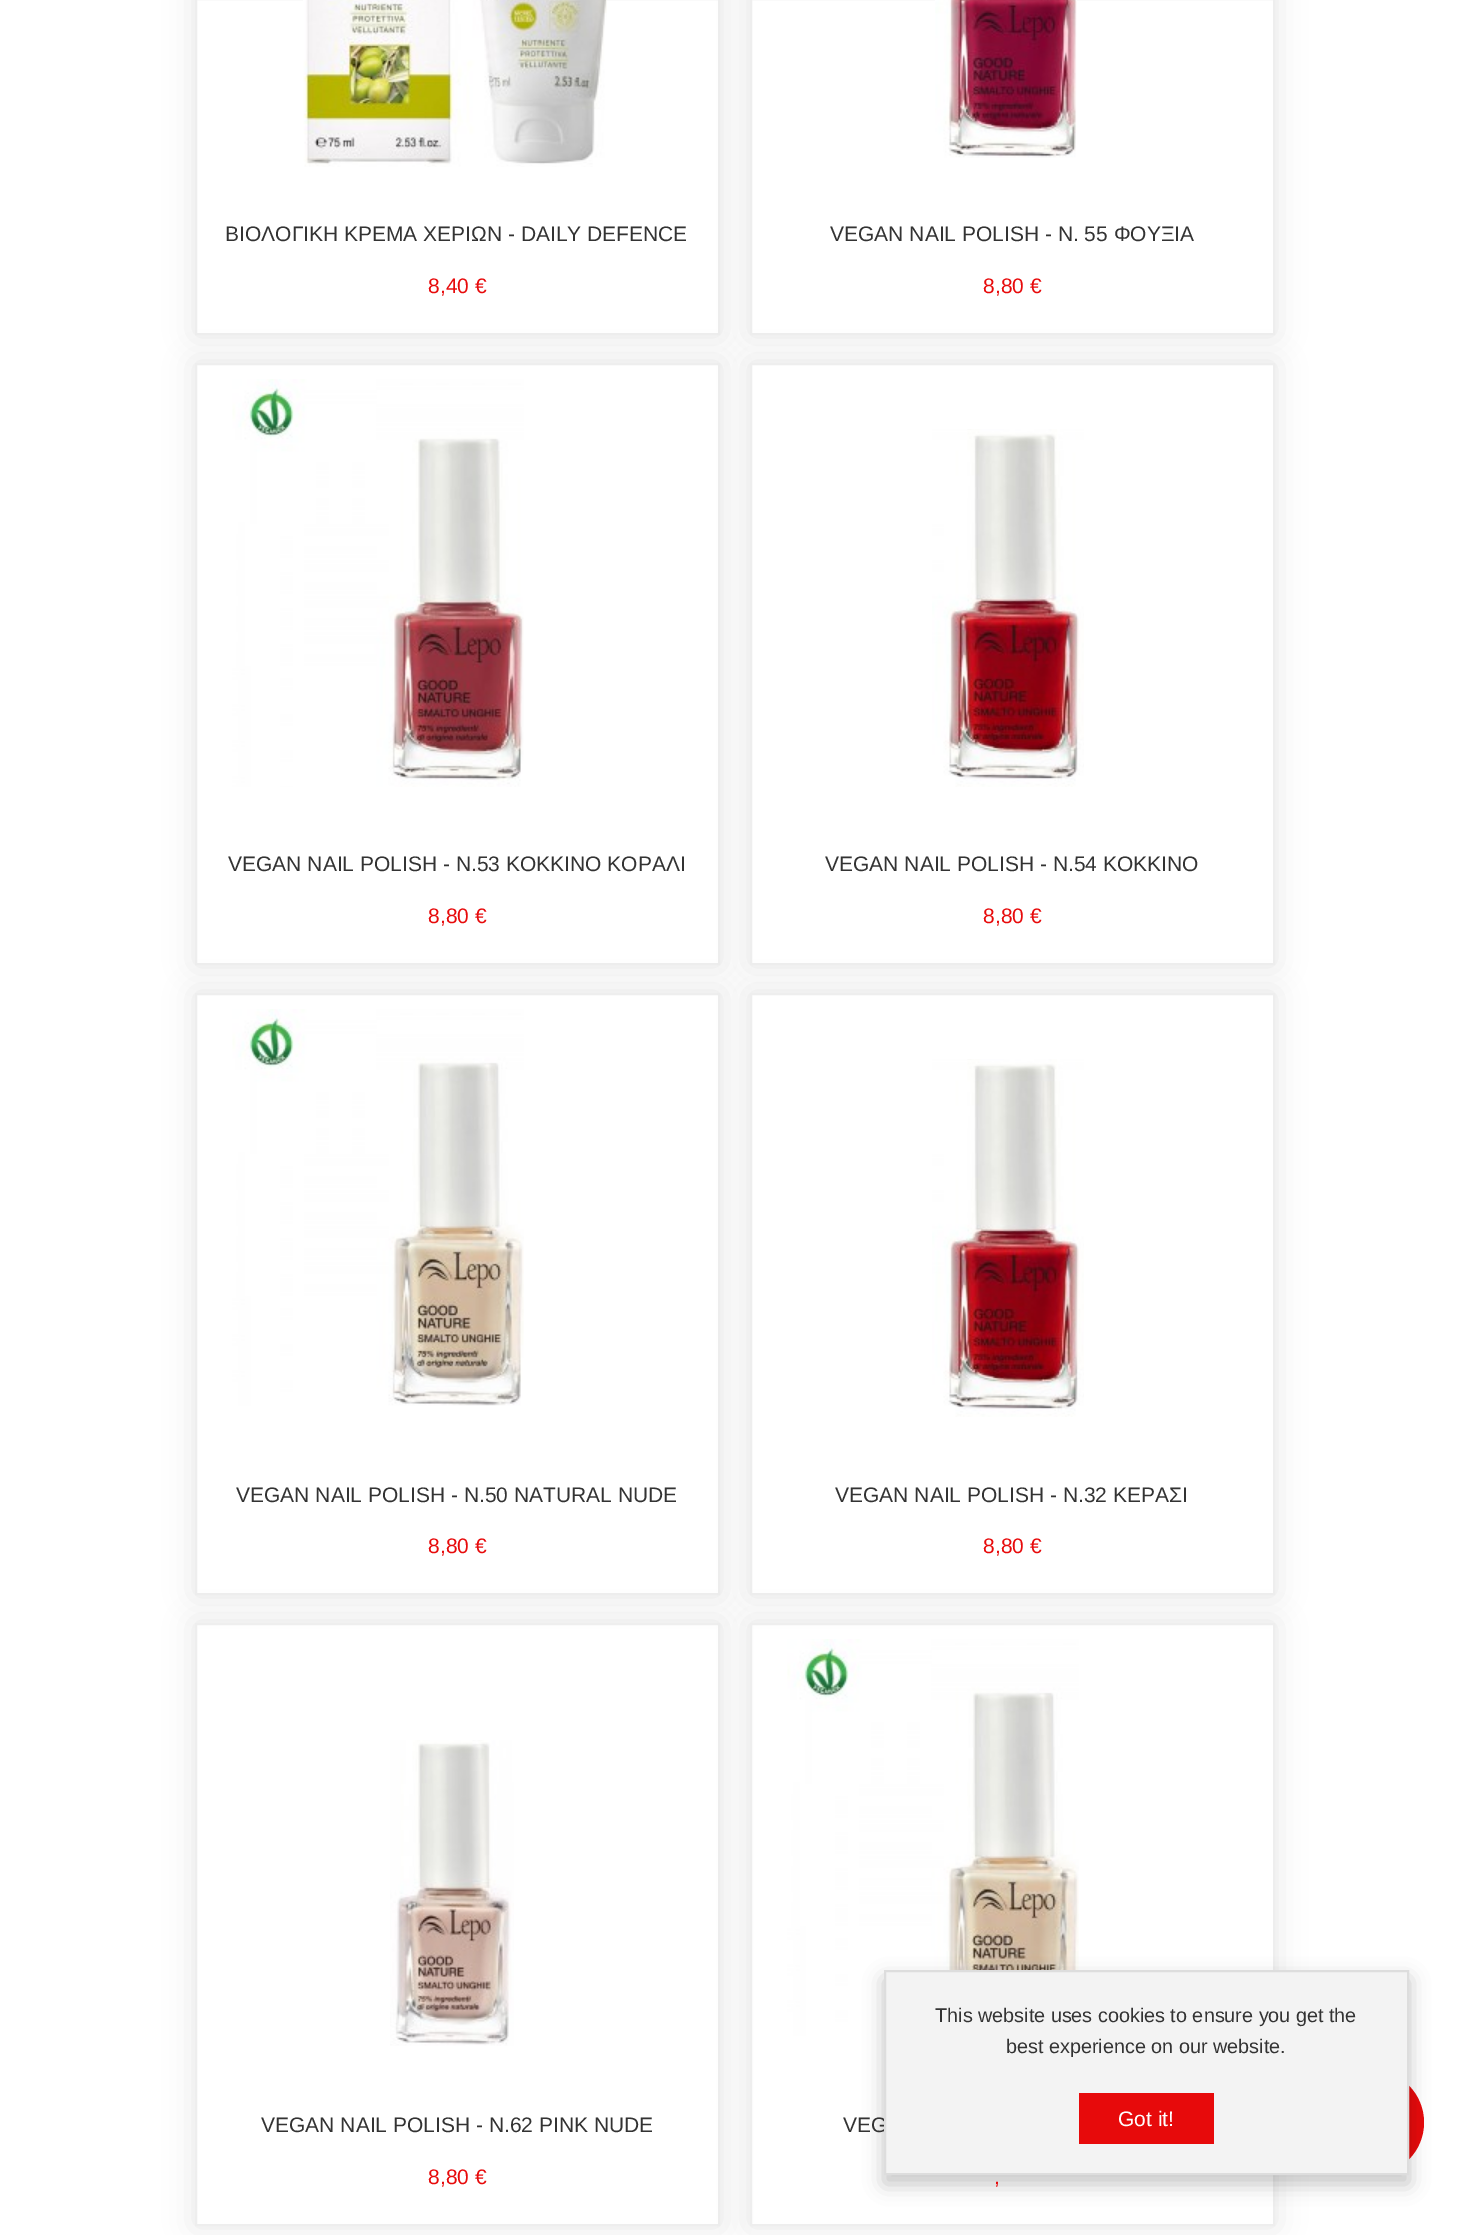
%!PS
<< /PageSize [1468 2235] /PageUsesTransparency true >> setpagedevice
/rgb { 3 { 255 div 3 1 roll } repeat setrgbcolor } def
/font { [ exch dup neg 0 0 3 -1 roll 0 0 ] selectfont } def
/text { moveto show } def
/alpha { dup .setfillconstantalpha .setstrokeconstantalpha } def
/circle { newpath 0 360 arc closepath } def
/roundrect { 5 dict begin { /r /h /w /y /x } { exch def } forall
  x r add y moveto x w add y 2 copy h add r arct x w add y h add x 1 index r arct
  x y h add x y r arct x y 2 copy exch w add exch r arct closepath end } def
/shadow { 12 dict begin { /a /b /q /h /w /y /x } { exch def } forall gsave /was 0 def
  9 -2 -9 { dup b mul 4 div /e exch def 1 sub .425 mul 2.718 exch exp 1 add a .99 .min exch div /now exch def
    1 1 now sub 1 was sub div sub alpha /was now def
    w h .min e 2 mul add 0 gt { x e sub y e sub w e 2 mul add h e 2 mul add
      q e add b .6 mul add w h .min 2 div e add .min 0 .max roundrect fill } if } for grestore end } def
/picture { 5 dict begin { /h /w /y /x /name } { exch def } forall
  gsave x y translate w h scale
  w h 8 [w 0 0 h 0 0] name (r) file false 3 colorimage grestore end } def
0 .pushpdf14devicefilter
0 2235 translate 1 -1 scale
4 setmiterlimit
255 255 255 rgb
0 0 1468 2235 rectfill
0 0 0 rgb
195 -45 525 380 0 15 0.1 shadow
255 255 255 rgb
196 -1 moveto 523 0 rlineto 0 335 rlineto -523 0 rlineto closepath gsave fill grestore
238 238 238 rgb
2 setlinewidth
stroke
(img_01.rgb) 303 0 304 167 picture
0 0 0 rgb
750 -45 525 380 0 15 0.1 shadow
255 255 255 rgb
751 -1 moveto 523 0 rlineto 0 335 rlineto -523 0 rlineto closepath gsave fill grestore
238 238 238 rgb
stroke
(img_02.rgb) 935 0 142 158 picture
0 0 0 rgb
195 363 525 602 0 15 0.1 shadow
255 255 255 rgb
196 364 moveto 523 0 rlineto 0 600 rlineto -523 0 rlineto closepath gsave fill grestore
238 238 238 rgb
stroke
(img_03.rgb) 232 379 292 408 picture
0 0 0 rgb
750 363 525 602 0 15 0.1 shadow
255 255 255 rgb
751 364 moveto 523 0 rlineto 0 600 rlineto -523 0 rlineto closepath gsave fill grestore
238 238 238 rgb
stroke
(img_04.rgb) 932 429 152 358 picture
0 0 0 rgb
195 993 525 602 0 15 0.1 shadow
255 255 255 rgb
196 994 moveto 523 0 rlineto 0 600 rlineto -523 0 rlineto closepath gsave fill grestore
238 238 238 rgb
stroke
(img_05.rgb) 232 1009 292 397 picture
0 0 0 rgb
750 993 525 602 0 15 0.1 shadow
255 255 255 rgb
751 994 moveto 523 0 rlineto 0 600 rlineto -523 0 rlineto closepath gsave fill grestore
238 238 238 rgb
stroke
(img_04.rgb) 932 1059 152 358 picture
gsave
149 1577 moveto 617 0 rlineto 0 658 rlineto -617 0 rlineto closepath 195 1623 moveto 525 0 rlineto 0 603 rlineto -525 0 rlineto closepath eoclip newpath
0 0 0 rgb
195 1623 525 603 0 15 0.1 shadow
grestore
196 1624 523 601 rectstroke
(img_06.rgb) 390 1740 124 306 picture
gsave
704 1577 moveto 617 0 rlineto 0 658 rlineto -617 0 rlineto closepath 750 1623 moveto 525 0 rlineto 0 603 rlineto -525 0 rlineto closepath eoclip newpath
0 0 0 rgb
750 1623 525 603 0 15 0.1 shadow
grestore
751 1624 523 601 rectstroke
(img_05.rgb) 787 1639 292 397 picture
231 10 11 rgb
1371.5 2122.5 52.5 circle fill
0 0 0 rgb
884 1979 525 205 0 10 0.23 shadow
/LiberationSans-Regular 21 font
51 51 51 rgb
(ΒΙΟΛΟΓΙΚΗ ΚΡΕΜΑ ΧΕΡΙΩΝ - DAILY DEFENCE) 225 241 text
231 10 11 rgb
(8,40 €) 428 293 text
51 51 51 rgb
(VEGAN NAIL POLISH - Ν. 55 ΦΟΥΞΙΑ) 830 241 text
231 10 11 rgb
(8,80 €) 983 293 text
51 51 51 rgb
(VEGAN NAIL POLISH - Ν.53 ΚΟΚΚΙΝΟ ΚΟΡΑΛΙ) 228 871 text
231 10 11 rgb
(8,80 €) 428 923 text
51 51 51 rgb
(VEGAN NAIL POLISH - Ν.54 ΚΟΚΚΙΝΟ) 825 871 text
231 10 11 rgb
(8,80 €) 983 923 text
51 51 51 rgb
(VEGAN NAIL POLISH - Ν.50 ΝATURAL NUDE) 236 1502 text
231 10 11 rgb
(8,80 €) 428 1553 text
51 51 51 rgb
(VEGAN NAIL POLISH - Ν.32 ΚΕΡΑΣΙ) 835 1502 text
231 10 11 rgb
(8,80 €) 983 1553 text
51 51 51 rgb
(VEGAN NAIL POLISH - Ν.62 PINK NUDE) 261 2132 text
231 10 11 rgb
(8,80 €) 428 2184 text
51 51 51 rgb
(VEG) 843 2132 text
231 10 11 rgb
(,) 994 2184 text
243 243 243 rgb
885 1971 moveto 523 0 rlineto 0 203 rlineto -523 0 rlineto closepath gsave fill grestore
221 221 221 rgb
stroke
/LiberationSans-Regular 19.8 font
51 51 51 rgb
(This website uses cookies to ensure you get the) 935 2022 text
(best experience on our website.) 1006 2053 text
231 10 11 rgb
1079 2093 135 51 rectfill
/LiberationSans-Regular 21 font
255 255 255 rgb
(Got it!) 1118 2126 text
.poppdf14devicefilter showpage
